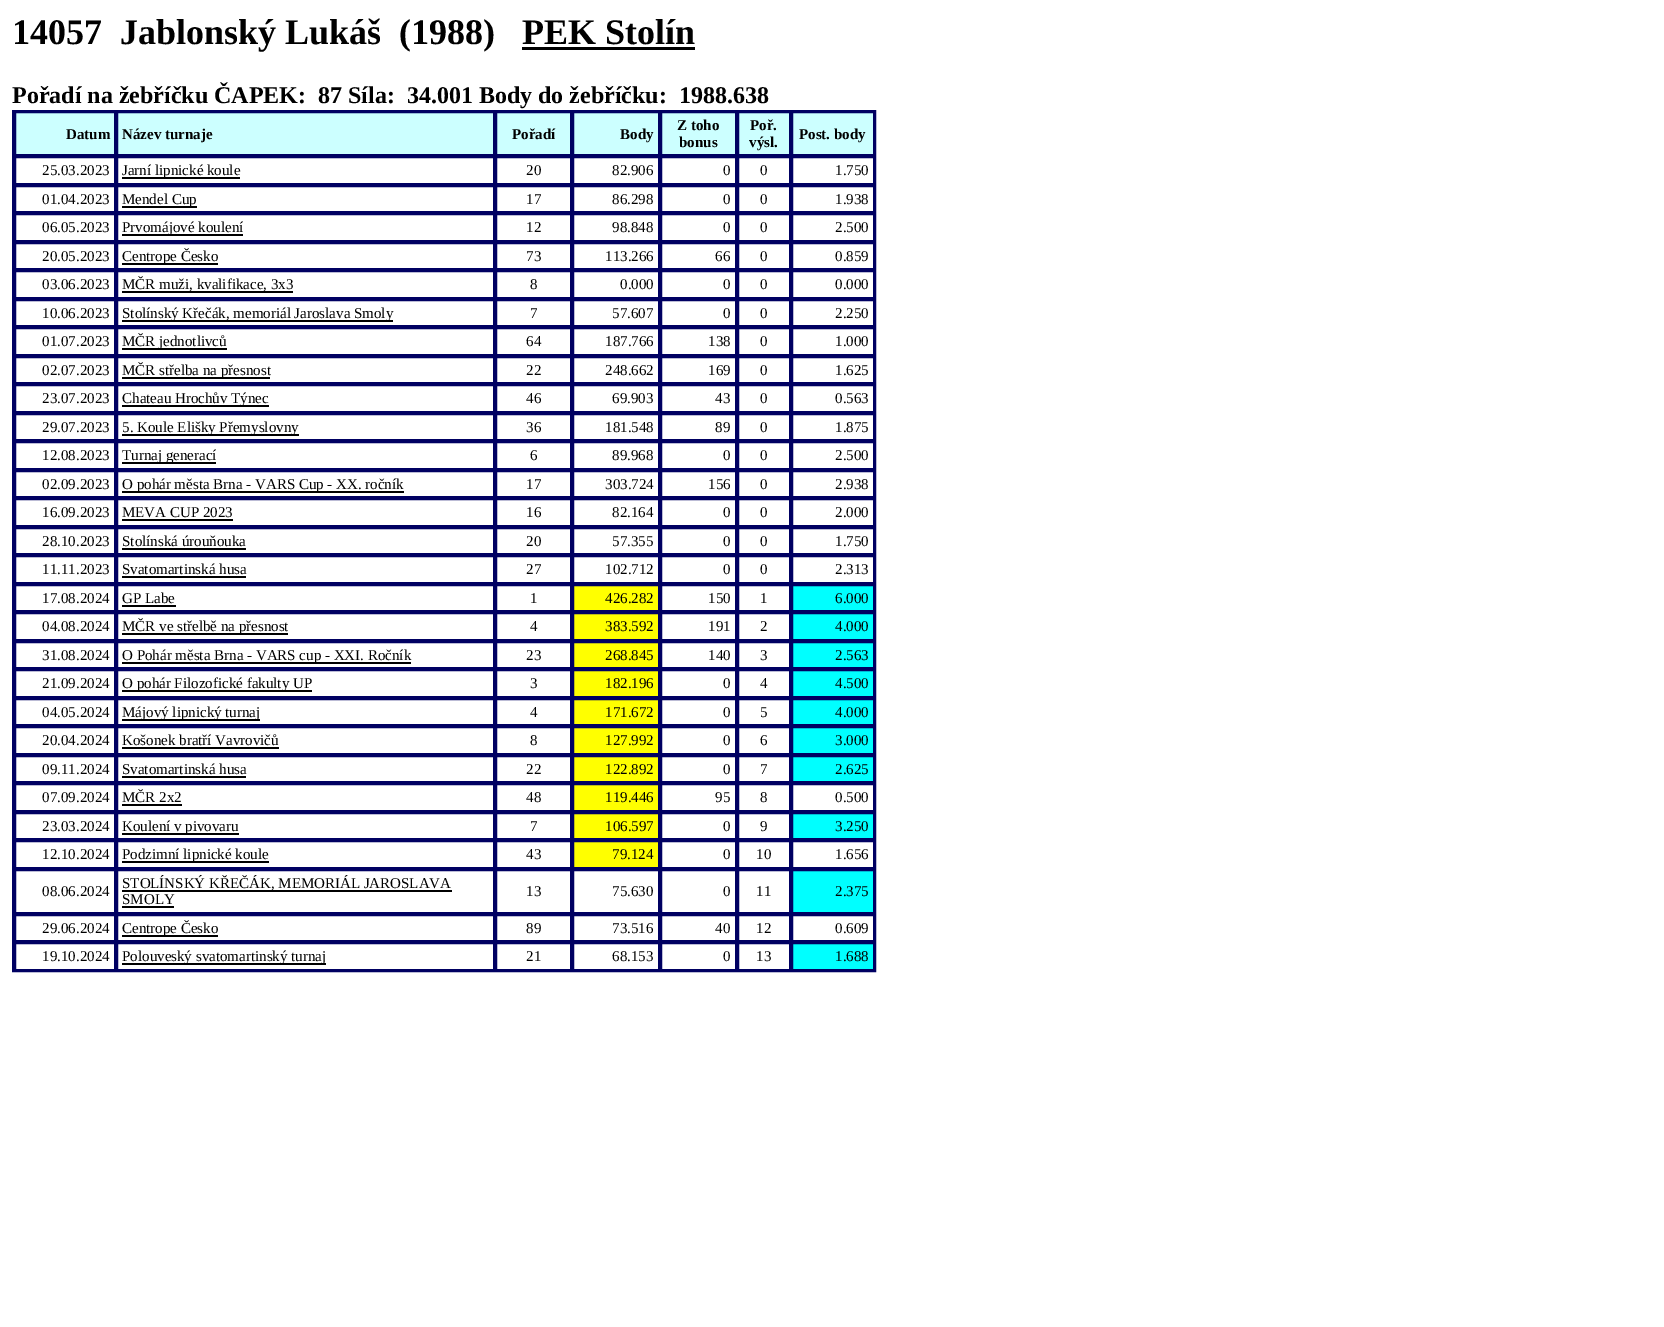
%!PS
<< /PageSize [1664 1327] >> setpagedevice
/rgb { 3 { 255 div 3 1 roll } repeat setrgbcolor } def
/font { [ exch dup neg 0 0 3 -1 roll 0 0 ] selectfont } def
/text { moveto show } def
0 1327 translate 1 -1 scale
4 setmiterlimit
255 255 255 rgb
0 0 1664 1327 rectfill
0 0 0 rgb
522 47 173 3 rectfill
0 0 98 rgb
2 setlinewidth
13 111 862 860 rectstroke
204 255 255 rgb
15 112 moveto 100 0 rlineto 0 43 rlineto -100 0 rlineto closepath gsave fill grestore
0 0 98 rgb
stroke
204 255 255 rgb
117 112 moveto 377 0 rlineto 0 43 rlineto -377 0 rlineto closepath gsave fill grestore
0 0 98 rgb
stroke
204 255 255 rgb
496 112 moveto 75 0 rlineto 0 43 rlineto -75 0 rlineto closepath gsave fill grestore
0 0 98 rgb
stroke
204 255 255 rgb
573 112 moveto 86 0 rlineto 0 43 rlineto -86 0 rlineto closepath gsave fill grestore
0 0 98 rgb
stroke
204 255 255 rgb
661 112 moveto 75 0 rlineto 0 43 rlineto -75 0 rlineto closepath gsave fill grestore
0 0 98 rgb
stroke
204 255 255 rgb
738 112 moveto 52 0 rlineto 0 43 rlineto -52 0 rlineto closepath gsave fill grestore
0 0 98 rgb
stroke
204 255 255 rgb
792 112 moveto 82 0 rlineto 0 43 rlineto -82 0 rlineto closepath gsave fill grestore
0 0 98 rgb
stroke
15 157 100 27 rectstroke
117 157 377 27 rectstroke
0 0 0 rgb
122 177 118 2 rectfill
0 0 98 rgb
496 157 75 27 rectstroke
573 157 86 27 rectstroke
661 157 75 27 rectstroke
738 157 52 27 rectstroke
792 157 82 27 rectstroke
15 186 100 26 rectstroke
117 186 377 26 rectstroke
0 0 0 rgb
122 206 75 2 rectfill
0 0 98 rgb
496 186 75 26 rectstroke
573 186 86 26 rectstroke
661 186 75 26 rectstroke
738 186 52 26 rectstroke
792 186 82 26 rectstroke
15 214 100 27 rectstroke
117 214 377 27 rectstroke
0 0 0 rgb
122 234 121 2 rectfill
0 0 98 rgb
496 214 75 27 rectstroke
573 214 86 27 rectstroke
661 214 75 27 rectstroke
738 214 52 27 rectstroke
792 214 82 27 rectstroke
15 243 100 26 rectstroke
117 243 377 26 rectstroke
0 0 0 rgb
122 263 96 2 rectfill
0 0 98 rgb
496 243 75 26 rectstroke
573 243 86 26 rectstroke
661 243 75 26 rectstroke
738 243 52 26 rectstroke
792 243 82 26 rectstroke
15 271 100 27 rectstroke
117 271 377 27 rectstroke
0 0 0 rgb
122 291 171 2 rectfill
0 0 98 rgb
496 271 75 27 rectstroke
573 271 86 27 rectstroke
661 271 75 27 rectstroke
738 271 52 27 rectstroke
792 271 82 27 rectstroke
15 300 100 26 rectstroke
117 300 377 26 rectstroke
0 0 0 rgb
122 320 271 2 rectfill
0 0 98 rgb
496 300 75 26 rectstroke
573 300 86 26 rectstroke
661 300 75 26 rectstroke
738 300 52 26 rectstroke
792 300 82 26 rectstroke
15 328 100 27 rectstroke
117 328 377 27 rectstroke
0 0 0 rgb
122 348 105 2 rectfill
0 0 98 rgb
496 328 75 27 rectstroke
573 328 86 27 rectstroke
661 328 75 27 rectstroke
738 328 52 27 rectstroke
792 328 82 27 rectstroke
15 357 100 26 rectstroke
117 357 377 26 rectstroke
0 0 0 rgb
122 377 148 2 rectfill
0 0 98 rgb
496 357 75 26 rectstroke
573 357 86 26 rectstroke
661 357 75 26 rectstroke
738 357 52 26 rectstroke
792 357 82 26 rectstroke
15 385 100 27 rectstroke
117 385 377 27 rectstroke
0 0 0 rgb
122 405 147 2 rectfill
0 0 98 rgb
496 385 75 27 rectstroke
573 385 86 27 rectstroke
661 385 75 27 rectstroke
738 385 52 27 rectstroke
792 385 82 27 rectstroke
15 414 100 26 rectstroke
117 414 377 26 rectstroke
0 0 0 rgb
122 434 177 2 rectfill
0 0 98 rgb
496 414 75 26 rectstroke
573 414 86 26 rectstroke
661 414 75 26 rectstroke
738 414 52 26 rectstroke
792 414 82 26 rectstroke
15 442 100 27 rectstroke
117 442 377 27 rectstroke
0 0 0 rgb
122 462 94 2 rectfill
0 0 98 rgb
496 442 75 27 rectstroke
573 442 86 27 rectstroke
661 442 75 27 rectstroke
738 442 52 27 rectstroke
792 442 82 27 rectstroke
15 471 100 26 rectstroke
117 471 377 26 rectstroke
0 0 0 rgb
122 491 282 2 rectfill
0 0 98 rgb
496 471 75 26 rectstroke
573 471 86 26 rectstroke
661 471 75 26 rectstroke
738 471 52 26 rectstroke
792 471 82 26 rectstroke
15 499 100 27 rectstroke
117 499 377 27 rectstroke
0 0 0 rgb
122 519 111 2 rectfill
0 0 98 rgb
496 499 75 27 rectstroke
573 499 86 27 rectstroke
661 499 75 27 rectstroke
738 499 52 27 rectstroke
792 499 82 27 rectstroke
15 528 100 26 rectstroke
117 528 377 26 rectstroke
0 0 0 rgb
122 548 124 2 rectfill
0 0 98 rgb
496 528 75 26 rectstroke
573 528 86 26 rectstroke
661 528 75 26 rectstroke
738 528 52 26 rectstroke
792 528 82 26 rectstroke
15 556 100 27 rectstroke
117 556 377 27 rectstroke
0 0 0 rgb
122 576 124 2 rectfill
0 0 98 rgb
496 556 75 27 rectstroke
573 556 86 27 rectstroke
661 556 75 27 rectstroke
738 556 52 27 rectstroke
792 556 82 27 rectstroke
15 585 100 26 rectstroke
117 585 377 26 rectstroke
0 0 0 rgb
122 605 54 2 rectfill
0 0 98 rgb
496 585 75 26 rectstroke
255 255 0 rgb
573 585 moveto 86 0 rlineto 0 26 rlineto -86 0 rlineto closepath gsave fill grestore
0 0 98 rgb
stroke
661 585 75 26 rectstroke
738 585 52 26 rectstroke
0 255 255 rgb
792 585 moveto 82 0 rlineto 0 26 rlineto -82 0 rlineto closepath gsave fill grestore
0 0 98 rgb
stroke
15 613 100 27 rectstroke
117 613 377 27 rectstroke
0 0 0 rgb
122 633 166 2 rectfill
0 0 98 rgb
496 613 75 27 rectstroke
255 255 0 rgb
573 613 moveto 86 0 rlineto 0 27 rlineto -86 0 rlineto closepath gsave fill grestore
0 0 98 rgb
stroke
661 613 75 27 rectstroke
738 613 52 27 rectstroke
0 255 255 rgb
792 613 moveto 82 0 rlineto 0 27 rlineto -82 0 rlineto closepath gsave fill grestore
0 0 98 rgb
stroke
15 642 100 26 rectstroke
117 642 377 26 rectstroke
0 0 0 rgb
122 662 289 2 rectfill
0 0 98 rgb
496 642 75 26 rectstroke
255 255 0 rgb
573 642 moveto 86 0 rlineto 0 26 rlineto -86 0 rlineto closepath gsave fill grestore
0 0 98 rgb
stroke
661 642 75 26 rectstroke
738 642 52 26 rectstroke
0 255 255 rgb
792 642 moveto 82 0 rlineto 0 26 rlineto -82 0 rlineto closepath gsave fill grestore
0 0 98 rgb
stroke
15 670 100 27 rectstroke
117 670 377 27 rectstroke
0 0 0 rgb
122 690 190 2 rectfill
0 0 98 rgb
496 670 75 27 rectstroke
255 255 0 rgb
573 670 moveto 86 0 rlineto 0 27 rlineto -86 0 rlineto closepath gsave fill grestore
0 0 98 rgb
stroke
661 670 75 27 rectstroke
738 670 52 27 rectstroke
0 255 255 rgb
792 670 moveto 82 0 rlineto 0 27 rlineto -82 0 rlineto closepath gsave fill grestore
0 0 98 rgb
stroke
15 699 100 26 rectstroke
117 699 377 26 rectstroke
0 0 0 rgb
122 719 138 2 rectfill
0 0 98 rgb
496 699 75 26 rectstroke
255 255 0 rgb
573 699 moveto 86 0 rlineto 0 26 rlineto -86 0 rlineto closepath gsave fill grestore
0 0 98 rgb
stroke
661 699 75 26 rectstroke
738 699 52 26 rectstroke
0 255 255 rgb
792 699 moveto 82 0 rlineto 0 26 rlineto -82 0 rlineto closepath gsave fill grestore
0 0 98 rgb
stroke
15 727 100 27 rectstroke
117 727 377 27 rectstroke
0 0 0 rgb
122 747 157 2 rectfill
0 0 98 rgb
496 727 75 27 rectstroke
255 255 0 rgb
573 727 moveto 86 0 rlineto 0 27 rlineto -86 0 rlineto closepath gsave fill grestore
0 0 98 rgb
stroke
661 727 75 27 rectstroke
738 727 52 27 rectstroke
0 255 255 rgb
792 727 moveto 82 0 rlineto 0 27 rlineto -82 0 rlineto closepath gsave fill grestore
0 0 98 rgb
stroke
15 756 100 26 rectstroke
117 756 377 26 rectstroke
0 0 0 rgb
122 776 124 2 rectfill
0 0 98 rgb
496 756 75 26 rectstroke
255 255 0 rgb
573 756 moveto 86 0 rlineto 0 26 rlineto -86 0 rlineto closepath gsave fill grestore
0 0 98 rgb
stroke
661 756 75 26 rectstroke
738 756 52 26 rectstroke
0 255 255 rgb
792 756 moveto 82 0 rlineto 0 26 rlineto -82 0 rlineto closepath gsave fill grestore
0 0 98 rgb
stroke
15 784 100 27 rectstroke
117 784 377 27 rectstroke
0 0 0 rgb
122 804 60 2 rectfill
0 0 98 rgb
496 784 75 27 rectstroke
255 255 0 rgb
573 784 moveto 86 0 rlineto 0 27 rlineto -86 0 rlineto closepath gsave fill grestore
0 0 98 rgb
stroke
661 784 75 27 rectstroke
738 784 52 27 rectstroke
792 784 82 27 rectstroke
15 813 100 26 rectstroke
117 813 377 26 rectstroke
0 0 0 rgb
122 833 117 2 rectfill
0 0 98 rgb
496 813 75 26 rectstroke
255 255 0 rgb
573 813 moveto 86 0 rlineto 0 26 rlineto -86 0 rlineto closepath gsave fill grestore
0 0 98 rgb
stroke
661 813 75 26 rectstroke
738 813 52 26 rectstroke
0 255 255 rgb
792 813 moveto 82 0 rlineto 0 26 rlineto -82 0 rlineto closepath gsave fill grestore
0 0 98 rgb
stroke
15 841 100 27 rectstroke
117 841 377 27 rectstroke
0 0 0 rgb
122 861 147 2 rectfill
0 0 98 rgb
496 841 75 27 rectstroke
255 255 0 rgb
573 841 moveto 86 0 rlineto 0 27 rlineto -86 0 rlineto closepath gsave fill grestore
0 0 98 rgb
stroke
661 841 75 27 rectstroke
738 841 52 27 rectstroke
792 841 82 27 rectstroke
15 870 100 43 rectstroke
117 870 377 43 rectstroke
0 0 0 rgb
122 890 330 2 rectfill
122 906 52 2 rectfill
0 0 98 rgb
496 870 75 43 rectstroke
573 870 86 43 rectstroke
661 870 75 43 rectstroke
738 870 52 43 rectstroke
0 255 255 rgb
792 870 moveto 82 0 rlineto 0 43 rlineto -82 0 rlineto closepath gsave fill grestore
0 0 98 rgb
stroke
15 915 100 26 rectstroke
117 915 377 26 rectstroke
0 0 0 rgb
122 935 96 2 rectfill
0 0 98 rgb
496 915 75 26 rectstroke
573 915 86 26 rectstroke
661 915 75 26 rectstroke
738 915 52 26 rectstroke
792 915 82 26 rectstroke
15 943 100 27 rectstroke
117 943 377 27 rectstroke
0 0 0 rgb
122 963 204 2 rectfill
0 0 98 rgb
496 943 75 27 rectstroke
573 943 86 27 rectstroke
661 943 75 27 rectstroke
738 943 52 27 rectstroke
0 255 255 rgb
792 943 moveto 82 0 rlineto 0 27 rlineto -82 0 rlineto closepath gsave fill grestore
0 0 98 rgb
stroke
/LiberationSerif-Bold 36 font
0 0 0 rgb
(14057  Jablonský Lukáš  \(1988\)) 12 44 text
(PEK Stolín) 522 44 text
/LiberationSerif-Bold 24 font
(Pořadí na žebříčku ČAPEK:  87 Síla:  34.001 Body do žebříčku:  1988.638) 12 103 text
/LiberationSerif-Bold 15 font
(Datum) 66 139 text
(Název turnaje) 122 139 text
(Pořadí) 512 139 text
(Body) 620 139 text
(Z toho) 677 130 text
(bonus) 679 147 text
(Poř.) 750 130 text
(výsl.) 749 147 text
(Post. body) 799 139 text
/LiberationSerif-Regular 15 font
(25.03.2023) 42 175 text
(Jarní lipnické koule) 122 175 text
(20) 526 175 text
(82.906) 612 175 text
(0) 723 175 text
(0) 760 175 text
(1.750) 835 175 text
(01.04.2023) 42 204 text
(Mendel Cup) 122 204 text
(17) 526 204 text
(86.298) 612 204 text
(0) 723 204 text
(0) 760 204 text
(1.938) 835 204 text
(06.05.2023) 42 232 text
(Prvomájové koulení) 122 232 text
(12) 526 232 text
(98.848) 612 232 text
(0) 723 232 text
(0) 760 232 text
(2.500) 835 232 text
(20.05.2023) 42 261 text
(Centrope Česko) 122 261 text
(73) 526 261 text
(113.266) 605 261 text
(66) 715 261 text
(0) 760 261 text
(0.859) 835 261 text
(03.06.2023) 42 289 text
(MČR muži, kvalifikace, 3x3) 122 289 text
(8) 530 289 text
(0.000) 620 289 text
(0) 723 289 text
(0) 760 289 text
(0.000) 835 289 text
(10.06.2023) 42 318 text
(Stolínský Křečák, memoriál Jaroslava Smoly) 122 318 text
(7) 530 318 text
(57.607) 612 318 text
(0) 723 318 text
(0) 760 318 text
(2.250) 835 318 text
(01.07.2023) 42 346 text
(MČR jednotlivců) 122 346 text
(64) 526 346 text
(187.766) 605 346 text
(138) 708 346 text
(0) 760 346 text
(1.000) 835 346 text
(02.07.2023) 42 375 text
(MČR střelba na přesnost) 122 375 text
(22) 526 375 text
(248.662) 605 375 text
(169) 708 375 text
(0) 760 375 text
(1.625) 835 375 text
(23.07.2023) 42 403 text
(Chateau Hrochův Týnec) 122 403 text
(46) 526 403 text
(69.903) 612 403 text
(43) 715 403 text
(0) 760 403 text
(0.563) 835 403 text
(29.07.2023) 42 432 text
(5. Koule Elišky Přemyslovny) 122 432 text
(36) 526 432 text
(181.548) 605 432 text
(89) 715 432 text
(0) 760 432 text
(1.875) 835 432 text
(12.08.2023) 42 460 text
(Turnaj generací) 122 460 text
(6) 530 460 text
(89.968) 612 460 text
(0) 723 460 text
(0) 760 460 text
(2.500) 835 460 text
(02.09.2023) 42 489 text
(O pohár města Brna - VARS Cup - XX. ročník) 122 489 text
(17) 526 489 text
(303.724) 605 489 text
(156) 708 489 text
(0) 760 489 text
(2.938) 835 489 text
(16.09.2023) 42 517 text
(MEVA CUP 2023) 122 517 text
(16) 526 517 text
(82.164) 612 517 text
(0) 723 517 text
(0) 760 517 text
(2.000) 835 517 text
(28.10.2023) 42 546 text
(Stolínská úrouňouka) 122 546 text
(20) 526 546 text
(57.355) 612 546 text
(0) 723 546 text
(0) 760 546 text
(1.750) 835 546 text
(11.11.2023) 42 574 text
(Svatomartinská husa) 122 574 text
(27) 526 574 text
(102.712) 605 574 text
(0) 723 574 text
(0) 760 574 text
(2.313) 835 574 text
(17.08.2024) 42 603 text
(GP Labe) 122 603 text
(1) 530 603 text
(426.282) 605 603 text
(150) 708 603 text
(1) 760 603 text
(6.000) 835 603 text
(04.08.2024) 42 631 text
(MČR ve střelbě na přesnost) 122 631 text
(4) 530 631 text
(383.592) 605 631 text
(191) 708 631 text
(2) 760 631 text
(4.000) 835 631 text
(31.08.2024) 42 660 text
(O Pohár města Brna - VARS cup - XXI. Ročník) 122 660 text
(23) 526 660 text
(268.845) 605 660 text
(140) 708 660 text
(3) 760 660 text
(2.563) 835 660 text
(21.09.2024) 42 688 text
(O pohár Filozofické fakulty UP) 122 688 text
(3) 530 688 text
(182.196) 605 688 text
(0) 723 688 text
(4) 760 688 text
(4.500) 835 688 text
(04.05.2024) 42 717 text
(Májový lipnický turnaj) 122 717 text
(4) 530 717 text
(171.672) 605 717 text
(0) 723 717 text
(5) 760 717 text
(4.000) 835 717 text
(20.04.2024) 42 745 text
(Košonek bratří Vavrovičů) 122 745 text
(8) 530 745 text
(127.992) 605 745 text
(0) 723 745 text
(6) 760 745 text
(3.000) 835 745 text
(09.11.2024) 42 774 text
(Svatomartinská husa) 122 774 text
(22) 526 774 text
(122.892) 605 774 text
(0) 723 774 text
(7) 760 774 text
(2.625) 835 774 text
(07.09.2024) 42 802 text
(MČR 2x2) 122 802 text
(48) 526 802 text
(119.446) 605 802 text
(95) 715 802 text
(8) 760 802 text
(0.500) 835 802 text
(23.03.2024) 42 831 text
(Koulení v pivovaru) 122 831 text
(7) 530 831 text
(106.597) 605 831 text
(0) 723 831 text
(9) 760 831 text
(3.250) 835 831 text
(12.10.2024) 42 859 text
(Podzimní lipnické koule) 122 859 text
(43) 526 859 text
(79.124) 612 859 text
(0) 723 859 text
(10) 756 859 text
(1.656) 835 859 text
(08.06.2024) 42 896 text
(STOLÍNSKÝ KŘEČÁK, MEMORIÁL JAROSLAVA) 122 888 text
(SMOLY) 122 904 text
(13) 526 896 text
(75.630) 612 896 text
(0) 723 896 text
(11) 756 896 text
(2.375) 835 896 text
(29.06.2024) 42 933 text
(Centrope Česko) 122 933 text
(89) 526 933 text
(73.516) 612 933 text
(40) 715 933 text
(12) 756 933 text
(0.609) 835 933 text
(19.10.2024) 42 961 text
(Polouveský svatomartinský turnaj) 122 961 text
(21) 526 961 text
(68.153) 612 961 text
(0) 723 961 text
(13) 756 961 text
(1.688) 835 961 text
showpage
